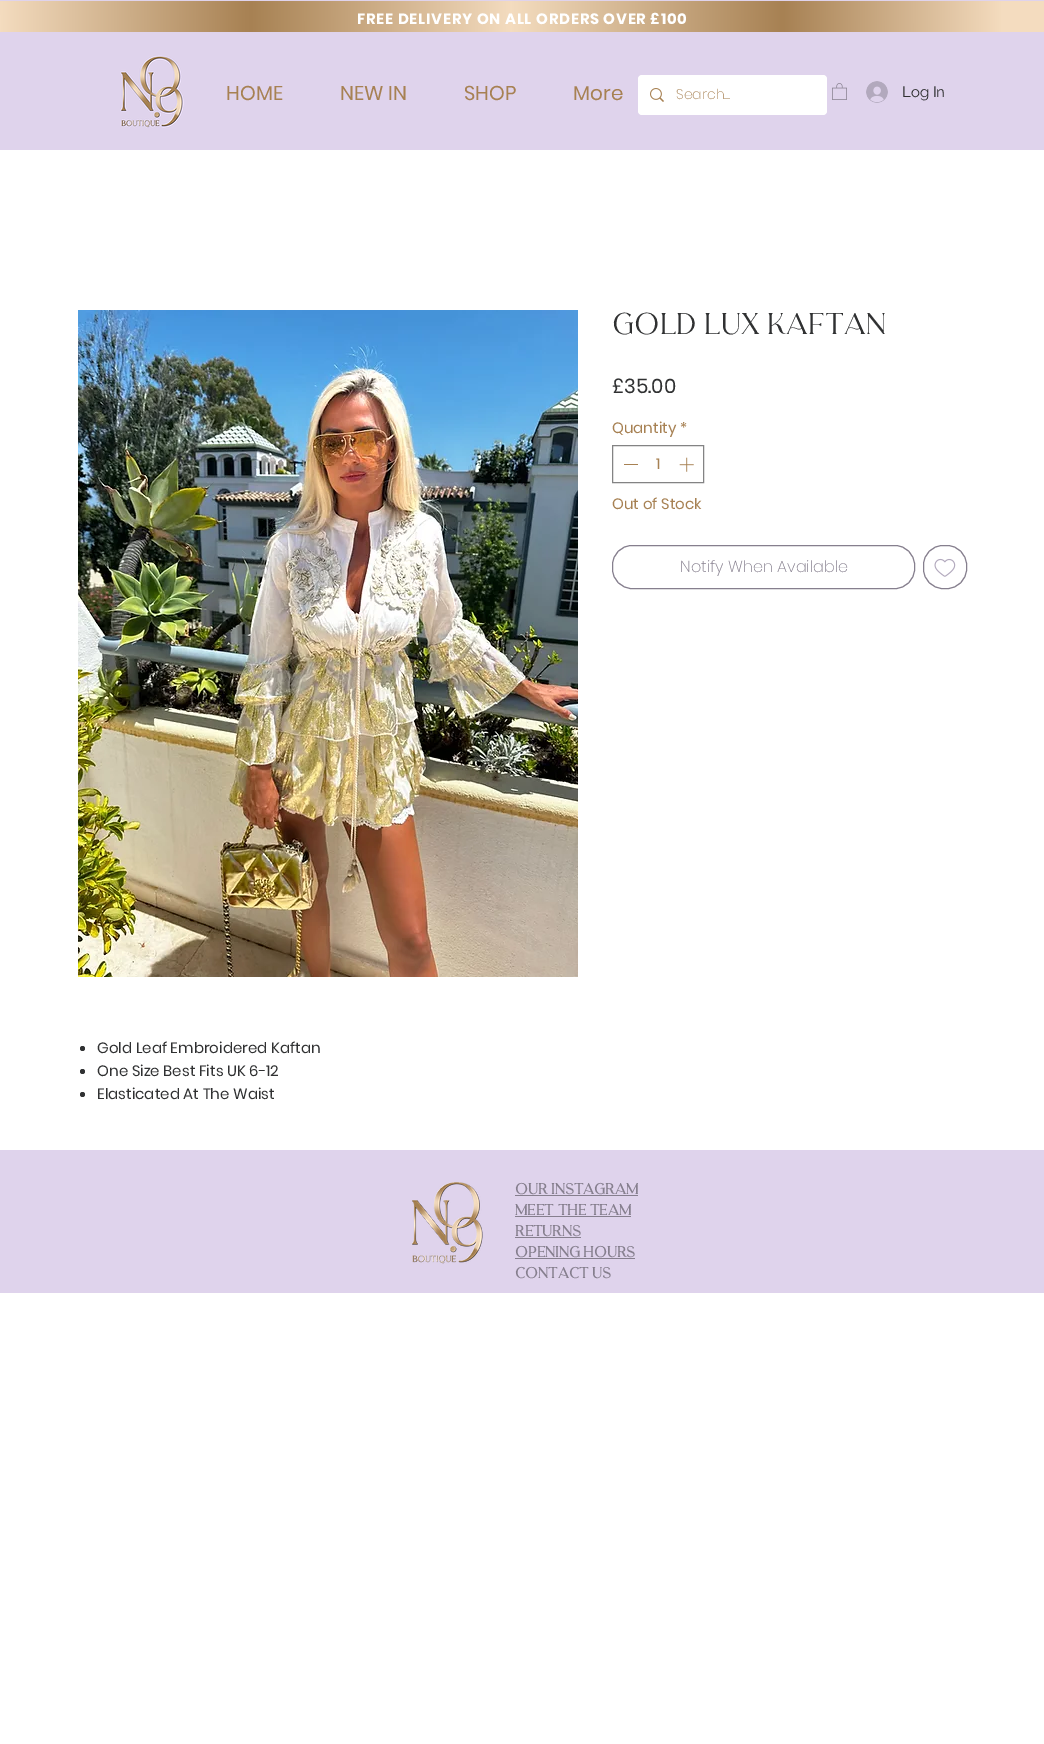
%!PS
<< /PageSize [1044 1744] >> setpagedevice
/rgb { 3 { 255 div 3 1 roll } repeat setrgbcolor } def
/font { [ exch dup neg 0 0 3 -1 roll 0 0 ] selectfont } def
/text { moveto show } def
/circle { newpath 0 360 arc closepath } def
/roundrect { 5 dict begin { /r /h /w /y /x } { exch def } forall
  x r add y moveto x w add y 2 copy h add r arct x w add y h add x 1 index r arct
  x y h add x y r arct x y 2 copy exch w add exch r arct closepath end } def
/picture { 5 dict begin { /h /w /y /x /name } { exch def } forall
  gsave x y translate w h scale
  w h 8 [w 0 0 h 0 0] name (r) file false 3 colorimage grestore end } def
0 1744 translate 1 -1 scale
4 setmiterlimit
255 255 255 rgb
0 0 1044 1744 rectfill
223 211 236 rgb
0 0 1044 150 rectfill
gsave 0 1 moveto 1044 0 rlineto 0 31 rlineto -1044 0 rlineto closepath clip newpath
<< /ShadingType 2 /ColorSpace /DeviceRGB /Coords [0 17 1044 16] /Extend [true true] /Function << /FunctionType 3 /Domain [0 1] /Functions [<< /FunctionType 2 /Domain [0 1] /C0 [0.957 0.863 0.749] /C1 [0.655 0.506 0.325] /N 1 >> << /FunctionType 2 /Domain [0 1] /C0 [0.655 0.506 0.325] /C1 [0.957 0.863 0.749] /N 1 >> << /FunctionType 2 /Domain [0 1] /C0 [0.957 0.863 0.749] /C1 [0.655 0.506 0.325] /N 1 >> << /FunctionType 2 /Domain [0 1] /C0 [0.655 0.506 0.325] /C1 [0.957 0.863 0.749] /N 1 >> << /FunctionType 2 /Domain [0 1] /C0 [0.957 0.863 0.749] /C1 [0.957 0.863 0.749] /N 1 >>] /Bounds [0.24 0.49 0.75 0.96] /Encode [0 1 0 1 0 1 0 1 0 1] >> >> shfill grestore
(img_01.rgb) 120 55 64 73 picture
255 255 255 rgb
638 75 189 40 4 roundrect fill
(img_02.rgb) 650 88 14 14 picture
(img_03.rgb) 832 83 15 17 picture
(img_04.rgb) 866 81 22 22 picture
131 131 132 rgb
612.5 445.5 91 37 rectstroke
167 129 83 rgb
624 464 14 1 rectfill
(img_05.rgb) 679 457 15 15 picture
134 127 142 rgb
612.5 545.5 302 43 19.5 roundrect stroke
923.5 545.5 43 43 19.5 roundrect stroke
(img_06.rgb) 934 558 22 19 picture
(img_07.rgb) 78 310 500 667 picture
48 49 50 rgb
82.5 1048.5 2.5 circle fill
82.5 1071.5 2.5 circle fill
82.5 1094.5 2.5 circle fill
223 211 236 rgb
0 1150 1044 143 rectfill
(img_08.rgb) 412 1182 71 82 picture
134 127 142 rgb
515 1195 123 1 rectfill
515 1216 116 1 rectfill
515 1237 66 1 rectfill
515 1258 120 1 rectfill
/Poppins-Bold 15 font
255 255 255 rgb
357 24 moveto 0.75 0 (FREE DELIVERY ON ALL ORDERS OVER £100) ashow
/Poppins-Regular 20 font
167 129 83 rgb
(HOME) 226 100 text
(NEW IN) 340 100 text
(SHOP) 464 100 text
(More) 573 100 text
/Poppins-ExtraLight 14 font
(Search...) 676 99 text
/Raleway-Regular 15 font
48 49 50 rgb
(Log In) 902 97 text
/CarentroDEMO-Regular 30 font
(Gold Lux Kaftan) 612 334 text
/Poppins-Regular 20 font
(£35.00) 612 393 text
/Poppins-Regular 15 font
167 129 83 rgb
(Quantity) 612 433 text
(*) 680 433 text
(1) 656 469 text
(Out of Stock) 612 509 text
/Poppins-ExtraLight 16 font
134 127 142 rgb
(Notify When Available) 680 572 text
/Poppins-Regular 15 font
48 49 50 rgb
(Gold Leaf Embroidered Kaftan) 97 1053 text
(One Size Best Fits UK 6-12) 97 1076 text
(Elasticated At The Waist) 97 1099 text
/CarentroDEMO-Bold 15 font
134 127 142 rgb
(OUR INSTAGRAM) 515 1194 text
(MEET THE TEAM) 515 1215 text
(RETURNS) 515 1236 text
(OPENING HOURS) 515 1257 text
(CONTACT US) 515 1278 text
showpage
